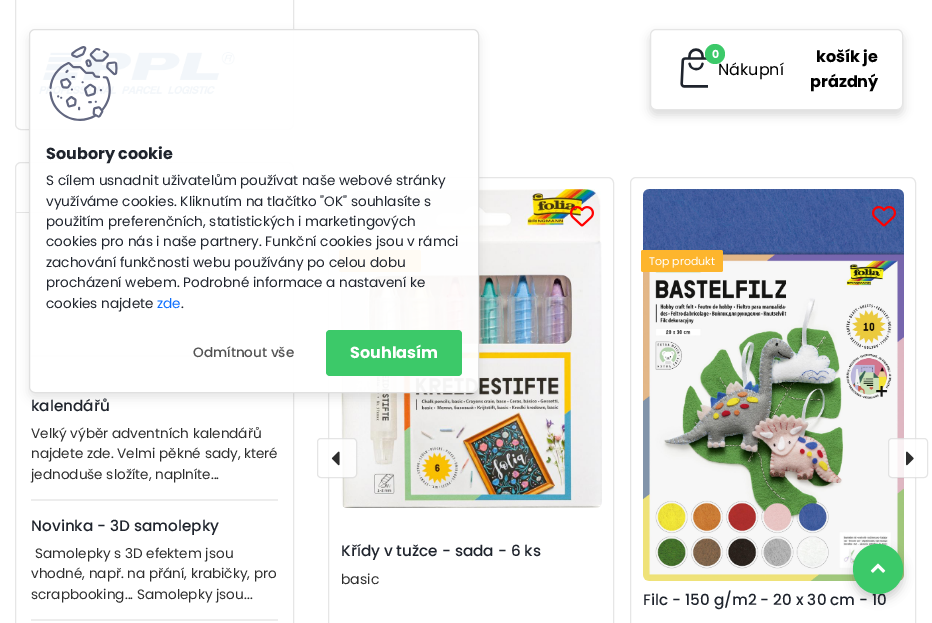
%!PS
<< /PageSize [932 623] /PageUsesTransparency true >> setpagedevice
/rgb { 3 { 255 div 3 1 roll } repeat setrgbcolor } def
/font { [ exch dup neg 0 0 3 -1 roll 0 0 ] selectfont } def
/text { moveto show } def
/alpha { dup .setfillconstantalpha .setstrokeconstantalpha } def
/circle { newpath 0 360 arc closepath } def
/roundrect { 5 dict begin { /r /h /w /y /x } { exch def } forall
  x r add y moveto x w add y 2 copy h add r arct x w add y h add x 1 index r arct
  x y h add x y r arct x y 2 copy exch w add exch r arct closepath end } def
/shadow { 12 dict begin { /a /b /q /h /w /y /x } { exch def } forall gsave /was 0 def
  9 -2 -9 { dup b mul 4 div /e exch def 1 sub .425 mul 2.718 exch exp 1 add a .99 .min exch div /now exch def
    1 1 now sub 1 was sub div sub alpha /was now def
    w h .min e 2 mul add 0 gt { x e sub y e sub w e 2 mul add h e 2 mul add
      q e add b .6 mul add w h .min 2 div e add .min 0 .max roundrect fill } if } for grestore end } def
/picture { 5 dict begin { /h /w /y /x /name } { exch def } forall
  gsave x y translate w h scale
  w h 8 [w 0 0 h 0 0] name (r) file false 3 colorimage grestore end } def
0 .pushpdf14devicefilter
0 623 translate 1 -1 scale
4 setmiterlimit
255 255 255 rgb
0 0 932 623 rectfill
0 0 0 rgb
650 34 253 81 6 5 0.15 shadow
255 255 255 rgb
650.5 29.5 252 80 5.5 roundrect gsave fill grestore
229 229 229 rgb
stroke
(img_01.rgb) 680 48 28 40 picture
230 230 230 rgb
15.5 -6.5 278 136 5.5 roundrect stroke
(img_02.rgb) 38 52 197 43 picture
15.5 162.5 278 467 5.5 roundrect stroke
16 212 277 1 rectfill
237 237 237 rgb
31 355 247 2 rectfill
31 499 247 2 rectfill
31 619 247 2 rectfill
230 230 230 rgb
328.5 177.5 285 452 5.5 roundrect stroke
(img_03.rgb) 341 189 261 319 picture
(img_04.rgb) 570 206 24 21 picture
253 181 45 rgb
339 250 82 22 2 roundrect fill
230 230 230 rgb
630.5 177.5 285 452 5.5 roundrect stroke
(img_05.rgb) 643 189 261 392 picture
(img_06.rgb) 872 206 24 21 picture
253 181 45 rgb
641 250 82 22 2 roundrect fill
0.8 alpha
255 255 255 rgb
317 438 40 40 4 roundrect fill
0.1 alpha
0 0 0 rgb
317.5 438.5 39 39 3.5 roundrect stroke
1 alpha
(img_07.rgb) 331 451 9 15 picture
0.8 alpha
255 255 255 rgb
888 438 40 40 4 roundrect fill
0.1 alpha
0 0 0 rgb
888.5 438.5 39 39 3.5 roundrect stroke
1 alpha
(img_08.rgb) 906 451 8 15 picture
gsave
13 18 moveto 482 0 rlineto 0 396 rlineto -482 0 rlineto closepath 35 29 moveto 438 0 rlineto 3.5 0 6 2.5 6 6 rcurveto 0 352 rlineto 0 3.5 -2.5 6 -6 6 rcurveto -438 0 rlineto -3.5 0 -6 -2.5 -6 -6 rcurveto 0 -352 rlineto 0 -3.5 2.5 -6 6 -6 rcurveto closepath eoclip newpath
29 34 450 364 6 5 0.1 shadow
grestore
0.95 alpha
255 255 255 rgb
29.5 29.5 449 363 5.5 roundrect fill
1 alpha
224 224 224 rgb
29.5 29.5 449 363 5.5 roundrect stroke
(img_09.rgb) 49 46 69 75 picture
60 201 105 rgb
326 330 136 46 4 roundrect fill
0 0 0 rgb
853 549 50 50 25 5 0.2 shadow
/Poppins-Regular 16 font
(Nákupní) 718 75 text
60 201 105 rgb
715 54 10 circle fill
/Poppins-Bold 11 font
255 255 255 rgb
(0) 712 58 text
/Poppins-Bold 16 font
0 0 0 rgb
(košík je) 816 62 text
(prázdný) 810 87 text
/Poppins-Medium 15.25 font
31 36 45 rgb
(kalendářů) 31 411 text
/Poppins-Regular 13.6 font
45 45 45 rgb
(Velký výběr adventních kalendářů) 31 438 text
(najdete zde. Velmi pěkné sady, které) 31 458 text
(jednoduše složíte, naplníte...) 31 479 text
/Poppins-Medium 15.25 font
31 36 45 rgb
(Novinka - 3D samolepky) 31 531 text
/Poppins-Regular 13.6 font
45 45 45 rgb
(Samolepky s 3D efektem jsou) 35 558 text
(vhodné, např. na přání, krabičky, pro) 31 578 text
(scrapbooking... Samolepky jsou...) 31 599 text
/Poppins-Medium 15.25 font
31 36 45 rgb
(Křídy v tužce - sada - 6 ks) 341 556 text
/Poppins-Regular 14 font
45 45 45 rgb
(basic) 341 584 text
/Poppins-Regular 11 font
255 255 255 rgb
(Top produkt) 649 265 text
/Poppins-Medium 15.25 font
31 36 45 rgb
(Filc - 150 g/m2 - 20 x 30 cm - 10) 643 605 text
/Poppins-Bold 16 font
(Soubory cookie) 46 159 text
/Poppins-Regular 13.6 font
(S cílem usnadnit uživatelům používat naše webové stránky) 46 185 text
(využíváme cookies. Kliknutím na tlačítko "OK" souhlasíte s) 46 206 text
(použitím preferenčních, statistických i marketingových) 46 226 text
(cookies pro nás i naše partnery. Funkční cookies jsou v rámci) 46 246 text
(zachování funkčnosti webu používány po celou dobu) 46 267 text
(procházení webem. Podrobné informace a nastavení ke) 46 287 text
(cookies najdete) 46 308 text
13 110 253 rgb
(zde) 157 308 text
31 36 45 rgb
(.) 181 308 text
/Poppins-Medium 13.6 font
83 83 83 rgb
(Odmítnout vše) 193 357 text
/Poppins-Bold 16 font
255 255 255 rgb
(Souhlasím) 350 358 text
60 201 105 rgb
878 569 25 circle fill
(img_10.rgb) 870 563 16 10 picture
.poppdf14devicefilter showpage
